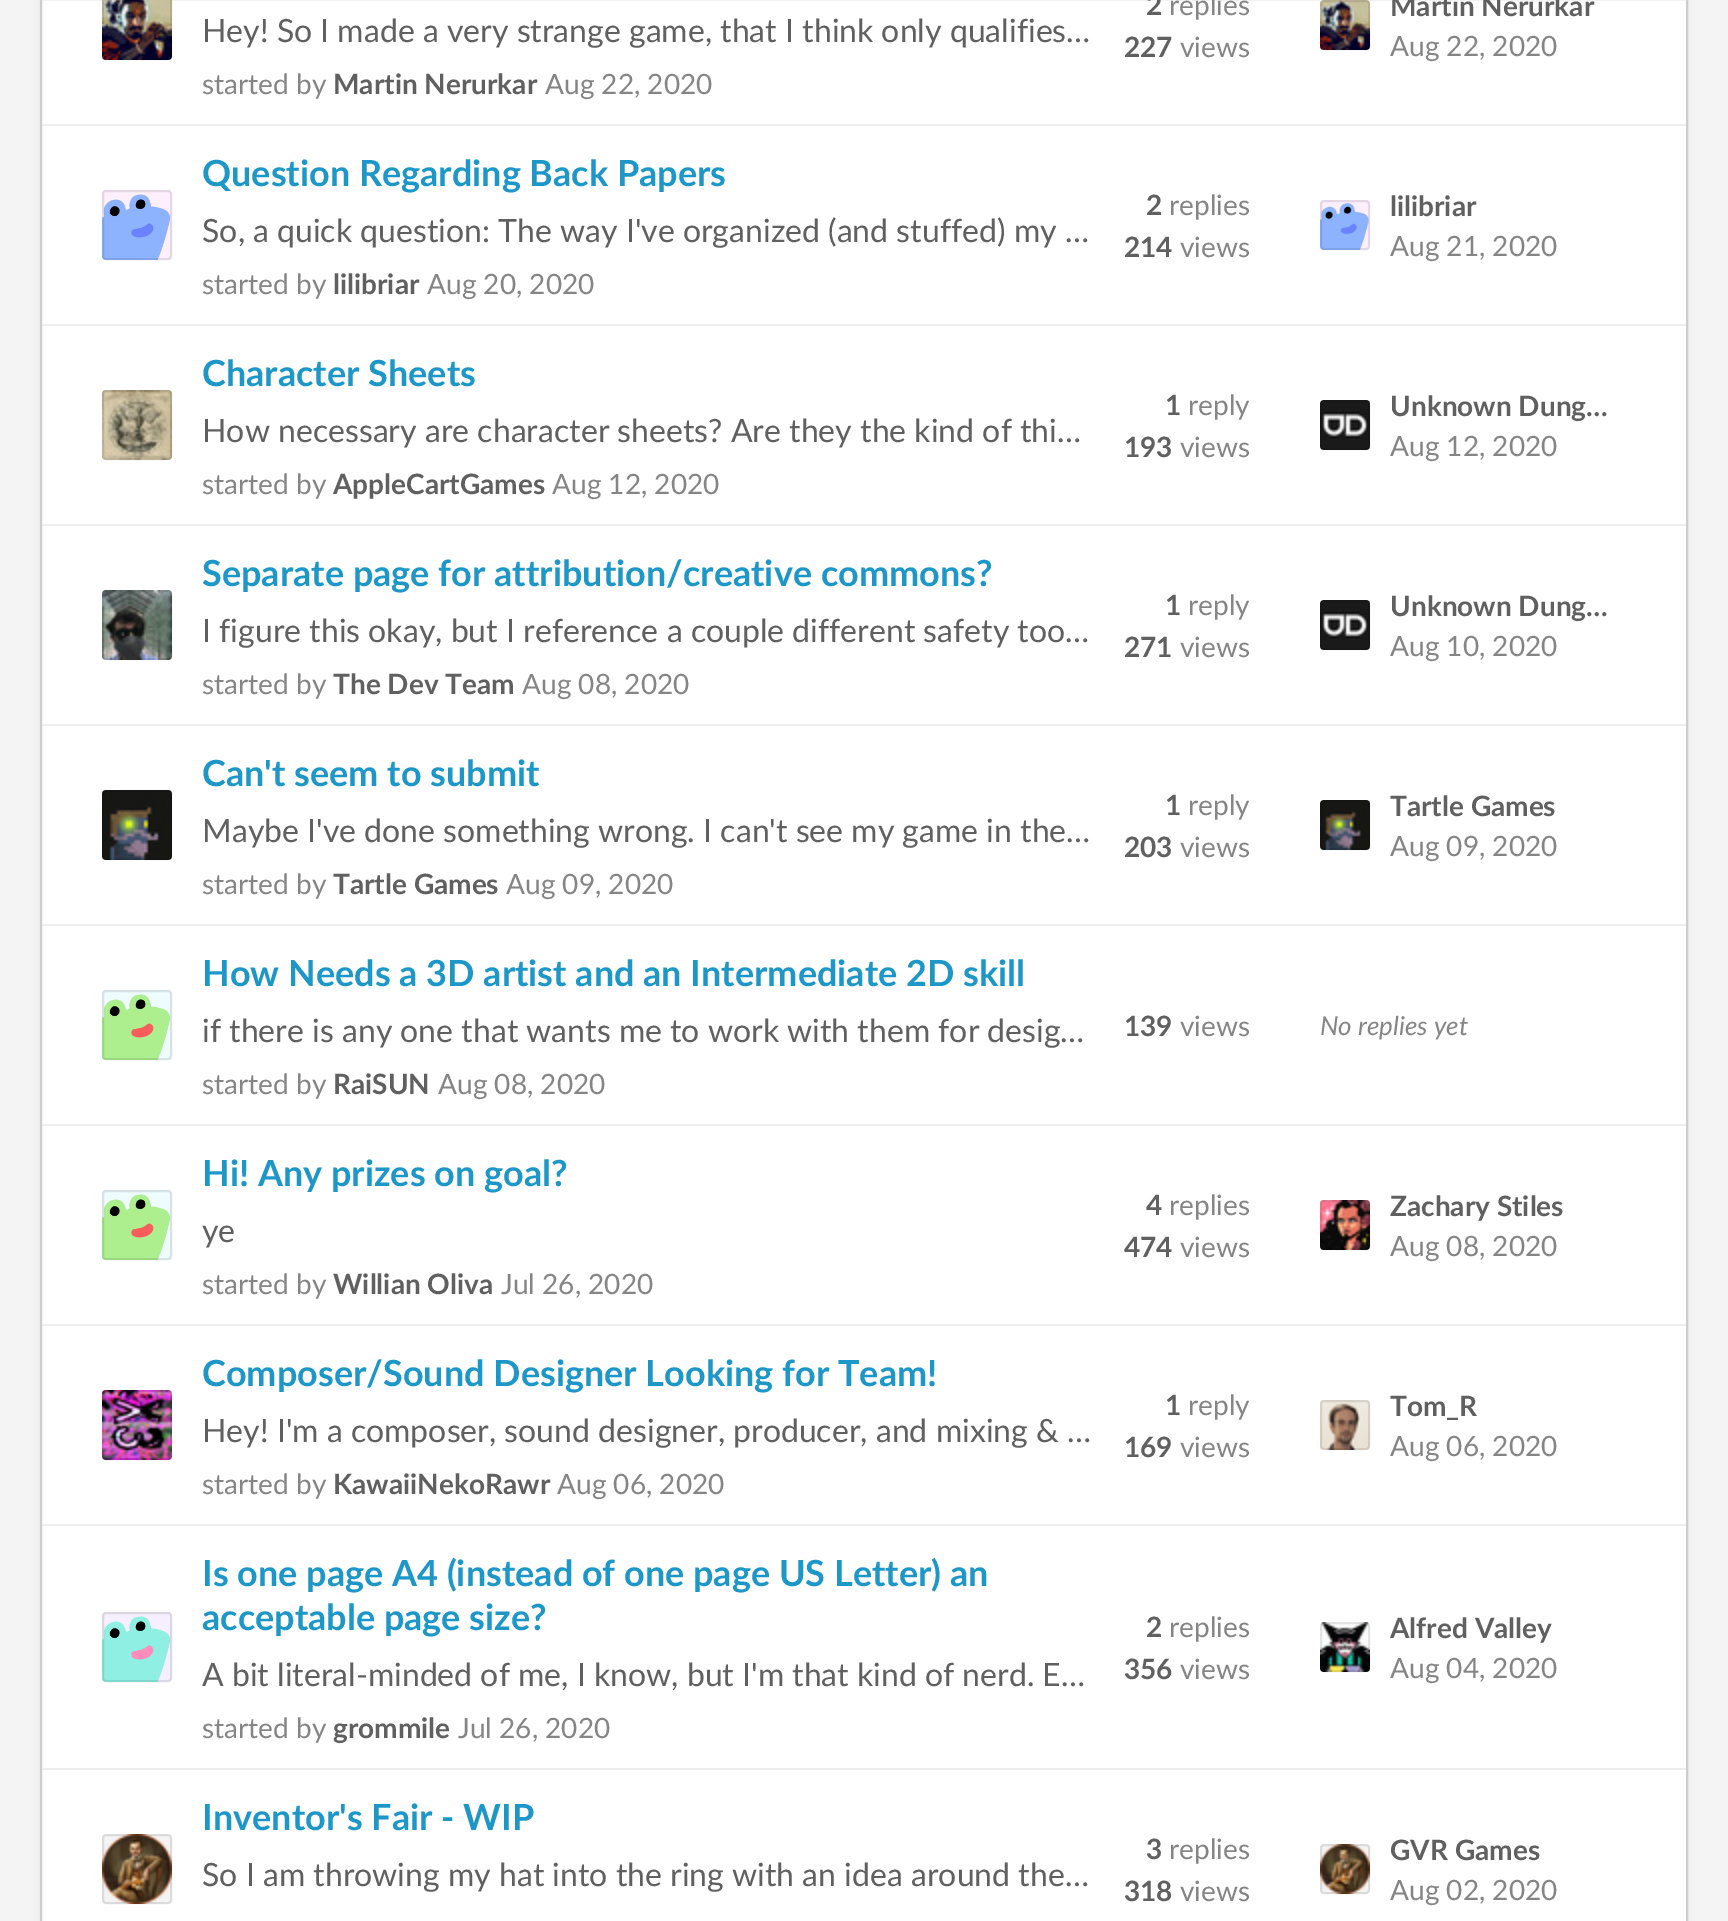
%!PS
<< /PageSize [1728 1921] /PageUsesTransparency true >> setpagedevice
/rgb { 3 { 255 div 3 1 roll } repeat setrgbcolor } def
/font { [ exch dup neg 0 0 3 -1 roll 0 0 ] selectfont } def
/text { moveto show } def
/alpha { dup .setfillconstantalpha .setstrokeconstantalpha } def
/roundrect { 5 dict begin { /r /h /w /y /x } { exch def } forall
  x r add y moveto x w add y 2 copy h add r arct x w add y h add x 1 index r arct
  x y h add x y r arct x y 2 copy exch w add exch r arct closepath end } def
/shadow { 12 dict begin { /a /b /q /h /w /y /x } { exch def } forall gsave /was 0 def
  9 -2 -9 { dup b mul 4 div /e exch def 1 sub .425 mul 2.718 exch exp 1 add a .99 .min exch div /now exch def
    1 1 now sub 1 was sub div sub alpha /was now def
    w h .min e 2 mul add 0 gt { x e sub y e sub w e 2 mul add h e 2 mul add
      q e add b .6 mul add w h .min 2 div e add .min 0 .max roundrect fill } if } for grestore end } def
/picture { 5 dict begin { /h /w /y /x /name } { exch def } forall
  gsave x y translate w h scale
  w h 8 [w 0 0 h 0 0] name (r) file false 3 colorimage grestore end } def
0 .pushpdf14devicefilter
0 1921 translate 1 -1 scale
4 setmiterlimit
244 244 244 rgb
0 0 1728 1921 rectfill
0 0 0 rgb
40 -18 1648 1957 6 4 0.05 shadow
255 255 255 rgb
41 -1 moveto 1646 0 rlineto 0 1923 rlineto -1646 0 rlineto closepath gsave fill grestore
205 205 205 rgb
2 setlinewidth
stroke
238 238 238 rgb
42 124 1644 2 rectfill
(img_01.rgb) 102 0 70 60 picture
0.1 alpha
0 0 0 rgb
103 -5 68 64 3 roundrect stroke
1 alpha
(img_02.rgb) 1320 0 50 50 picture
0.1 alpha
1321 1 48 48 3 roundrect stroke
1 alpha
238 238 238 rgb
42 324 1644 2 rectfill
(img_03.rgb) 102 190 70 70 picture
0.1 alpha
0 0 0 rgb
103 191 68 68 3 roundrect stroke
1 alpha
(img_04.rgb) 1320 200 50 50 picture
0.1 alpha
1321 201 48 48 3 roundrect stroke
1 alpha
238 238 238 rgb
42 524 1644 2 rectfill
(img_05.rgb) 102 390 70 70 picture
0.1 alpha
0 0 0 rgb
103 391 68 68 3 roundrect stroke
1 alpha
(img_06.rgb) 1320 400 50 50 picture
0.1 alpha
1321 401 48 48 3 roundrect stroke
1 alpha
238 238 238 rgb
42 724 1644 2 rectfill
(img_07.rgb) 102 590 70 70 picture
0.1 alpha
0 0 0 rgb
103 591 68 68 3 roundrect stroke
1 alpha
(img_06.rgb) 1320 600 50 50 picture
0.1 alpha
1321 601 48 48 3 roundrect stroke
1 alpha
238 238 238 rgb
42 924 1644 2 rectfill
(img_08.rgb) 102 790 70 70 picture
0.1 alpha
0 0 0 rgb
103 791 68 68 3 roundrect stroke
1 alpha
(img_09.rgb) 1320 800 50 50 picture
0.1 alpha
1321 801 48 48 3 roundrect stroke
1 alpha
238 238 238 rgb
42 1124 1644 2 rectfill
(img_10.rgb) 102 990 70 70 picture
0.1 alpha
0 0 0 rgb
103 991 68 68 3 roundrect stroke
1 alpha
238 238 238 rgb
42 1324 1644 2 rectfill
(img_11.rgb) 102 1190 70 70 picture
0.1 alpha
0 0 0 rgb
103 1191 68 68 3 roundrect stroke
1 alpha
(img_12.rgb) 1320 1200 50 50 picture
0.1 alpha
1321 1201 48 48 3 roundrect stroke
1 alpha
238 238 238 rgb
42 1524 1644 2 rectfill
(img_13.rgb) 102 1390 70 70 picture
0.1 alpha
0 0 0 rgb
103 1391 68 68 3 roundrect stroke
1 alpha
(img_14.rgb) 1320 1400 50 50 picture
0.1 alpha
1321 1401 48 48 3 roundrect stroke
1 alpha
238 238 238 rgb
42 1768 1644 2 rectfill
(img_15.rgb) 102 1612 70 70 picture
0.1 alpha
0 0 0 rgb
103 1613 68 68 3 roundrect stroke
1 alpha
(img_16.rgb) 1320 1622 50 50 picture
0.1 alpha
1321 1623 48 48 3 roundrect stroke
1 alpha
244 244 244 rgb
102 1834 70 70 4 roundrect fill
(img_17.rgb) 102 1834 70 70 picture
0.1 alpha
0 0 0 rgb
103 1835 68 68 3 roundrect stroke
1 alpha
244 244 244 rgb
1320 1844 50 50 4 roundrect fill
(img_18.rgb) 1320 1844 50 50 picture
0.1 alpha
0 0 0 rgb
1321 1845 48 48 3 roundrect stroke
/Lato-Regular 32 font
1 alpha
96 96 96 rgb
(Hey! So I made a very strange game, that I think only qualifies…) 202 42 text
/Lato-Regular 28 font
133 133 133 rgb
(started by) 202 94 text
/Lato-Bold 28 font
96 96 96 rgb
(Martin Nerurkar) 333 94 text
/Lato-Regular 28 font
133 133 133 rgb
(Aug 22, 2020) 545 94 text
/Lato-Bold 28 font
96 96 96 rgb
(2) 1146 15 text
/Lato-Regular 28 font
133 133 133 rgb
(replies) 1169 15 text
/Lato-Bold 28 font
96 96 96 rgb
(227) 1124 57 text
/Lato-Regular 28 font
133 133 133 rgb
(views) 1180 57 text
/Lato-Bold 28 font
96 96 96 rgb
(Martin Nerurkar) 1390 16 text
/Lato-Regular 28 font
133 133 133 rgb
(Aug 22, 2020) 1390 56 text
/Lato-Bold 36 font
29 150 200 rgb
(Question Regarding Back Papers) 202 186 text
/Lato-Regular 32 font
96 96 96 rgb
(So, a quick question: The way I've organized \(and stuffed\) my …) 202 242 text
/Lato-Regular 28 font
133 133 133 rgb
(started by) 202 294 text
/Lato-Bold 28 font
96 96 96 rgb
(lilibriar) 333 294 text
/Lato-Regular 28 font
133 133 133 rgb
(Aug 20, 2020) 427 294 text
/Lato-Bold 28 font
96 96 96 rgb
(2) 1146 215 text
/Lato-Regular 28 font
133 133 133 rgb
(replies) 1169 215 text
/Lato-Bold 28 font
96 96 96 rgb
(214) 1124 257 text
/Lato-Regular 28 font
133 133 133 rgb
(views) 1180 257 text
/Lato-Bold 28 font
96 96 96 rgb
(lilibriar) 1390 216 text
/Lato-Regular 28 font
133 133 133 rgb
(Aug 21, 2020) 1390 256 text
/Lato-Bold 36 font
29 150 200 rgb
(Character Sheets) 202 386 text
/Lato-Regular 32 font
96 96 96 rgb
(How necessary are character sheets? Are they the kind of thi…) 202 442 text
/Lato-Regular 28 font
133 133 133 rgb
(started by) 202 494 text
/Lato-Bold 28 font
96 96 96 rgb
(AppleCartGames) 333 494 text
/Lato-Regular 28 font
133 133 133 rgb
(Aug 12, 2020) 552 494 text
/Lato-Bold 28 font
96 96 96 rgb
(1) 1165 415 text
/Lato-Regular 28 font
133 133 133 rgb
(reply) 1188 415 text
/Lato-Bold 28 font
96 96 96 rgb
(193) 1124 457 text
/Lato-Regular 28 font
133 133 133 rgb
(views) 1180 457 text
/Lato-Bold 28 font
96 96 96 rgb
(Unknown Dung…) 1390 416 text
/Lato-Regular 28 font
133 133 133 rgb
(Aug 12, 2020) 1390 456 text
/Lato-Bold 36 font
29 150 200 rgb
(Separate page for attribution/creative commons?) 202 586 text
/Lato-Regular 32 font
96 96 96 rgb
(I figure this okay, but I reference a couple different safety too…) 202 642 text
/Lato-Regular 28 font
133 133 133 rgb
(started by) 202 694 text
/Lato-Bold 28 font
96 96 96 rgb
(The Dev Team) 333 694 text
/Lato-Regular 28 font
133 133 133 rgb
(Aug 08, 2020) 522 694 text
/Lato-Bold 28 font
96 96 96 rgb
(1) 1165 615 text
/Lato-Regular 28 font
133 133 133 rgb
(reply) 1188 615 text
/Lato-Bold 28 font
96 96 96 rgb
(271) 1124 657 text
/Lato-Regular 28 font
133 133 133 rgb
(views) 1180 657 text
/Lato-Bold 28 font
96 96 96 rgb
(Unknown Dung…) 1390 616 text
/Lato-Regular 28 font
133 133 133 rgb
(Aug 10, 2020) 1390 656 text
/Lato-Bold 36 font
29 150 200 rgb
(Can't seem to submit) 202 786 text
/Lato-Regular 32 font
96 96 96 rgb
(Maybe I've done something wrong. I can't see my game in the…) 202 842 text
/Lato-Regular 28 font
133 133 133 rgb
(started by) 202 894 text
/Lato-Bold 28 font
96 96 96 rgb
(Tartle Games) 333 894 text
/Lato-Regular 28 font
133 133 133 rgb
(Aug 09, 2020) 506 894 text
/Lato-Bold 28 font
96 96 96 rgb
(1) 1165 815 text
/Lato-Regular 28 font
133 133 133 rgb
(reply) 1188 815 text
/Lato-Bold 28 font
96 96 96 rgb
(203) 1124 857 text
/Lato-Regular 28 font
133 133 133 rgb
(views) 1180 857 text
/Lato-Bold 28 font
96 96 96 rgb
(Tartle Games) 1390 816 text
/Lato-Regular 28 font
133 133 133 rgb
(Aug 09, 2020) 1390 856 text
/Lato-Bold 36 font
29 150 200 rgb
(How Needs a 3D artist and an Intermediate 2D skill) 202 986 text
/Lato-Regular 32 font
96 96 96 rgb
(if there is any one that wants me to work with them for desig…) 202 1042 text
/Lato-Regular 28 font
133 133 133 rgb
(started by) 202 1094 text
/Lato-Bold 28 font
96 96 96 rgb
(RaiSUN) 333 1094 text
/Lato-Regular 28 font
133 133 133 rgb
(Aug 08, 2020) 438 1094 text
/Lato-Bold 28 font
96 96 96 rgb
(139) 1124 1036 text
/Lato-Regular 28 font
133 133 133 rgb
(views) 1180 1036 text
/Lato-Italic 26 font
(No replies yet) 1320 1035 text
/Lato-Bold 36 font
29 150 200 rgb
(Hi! Any prizes on goal?) 202 1186 text
/Lato-Regular 32 font
96 96 96 rgb
(ye) 202 1242 text
/Lato-Regular 28 font
133 133 133 rgb
(started by) 202 1294 text
/Lato-Bold 28 font
96 96 96 rgb
(Willian Oliva) 333 1294 text
/Lato-Regular 28 font
133 133 133 rgb
(Jul 26, 2020) 501 1294 text
/Lato-Bold 28 font
96 96 96 rgb
(4) 1146 1215 text
/Lato-Regular 28 font
133 133 133 rgb
(replies) 1169 1215 text
/Lato-Bold 28 font
96 96 96 rgb
(474) 1124 1257 text
/Lato-Regular 28 font
133 133 133 rgb
(views) 1180 1257 text
/Lato-Bold 28 font
96 96 96 rgb
(Zachary Stiles) 1390 1216 text
/Lato-Regular 28 font
133 133 133 rgb
(Aug 08, 2020) 1390 1256 text
/Lato-Bold 36 font
29 150 200 rgb
(Composer/Sound Designer Looking for Team!) 202 1386 text
/Lato-Regular 32 font
96 96 96 rgb
(Hey! I'm a composer, sound designer, producer, and mixing & …) 202 1442 text
/Lato-Regular 28 font
133 133 133 rgb
(started by) 202 1494 text
/Lato-Bold 28 font
96 96 96 rgb
(KawaiiNekoRawr) 333 1494 text
/Lato-Regular 28 font
133 133 133 rgb
(Aug 06, 2020) 557 1494 text
/Lato-Bold 28 font
96 96 96 rgb
(1) 1165 1415 text
/Lato-Regular 28 font
133 133 133 rgb
(reply) 1188 1415 text
/Lato-Bold 28 font
96 96 96 rgb
(169) 1124 1457 text
/Lato-Regular 28 font
133 133 133 rgb
(views) 1180 1457 text
/Lato-Bold 28 font
96 96 96 rgb
(Tom_R) 1390 1416 text
/Lato-Regular 28 font
133 133 133 rgb
(Aug 06, 2020) 1390 1456 text
/Lato-Bold 36 font
29 150 200 rgb
(Is one page A4 \(instead of one page US Letter\) an) 202 1586 text
(acceptable page size?) 202 1630 text
/Lato-Regular 32 font
96 96 96 rgb
(A bit literal-minded of me, I know, but I'm that kind of nerd. E…) 202 1686 text
/Lato-Regular 28 font
133 133 133 rgb
(started by) 202 1738 text
/Lato-Bold 28 font
96 96 96 rgb
(grommile) 333 1738 text
/Lato-Regular 28 font
133 133 133 rgb
(Jul 26, 2020) 458 1738 text
/Lato-Bold 28 font
96 96 96 rgb
(2) 1146 1637 text
/Lato-Regular 28 font
133 133 133 rgb
(replies) 1169 1637 text
/Lato-Bold 28 font
96 96 96 rgb
(356) 1124 1679 text
/Lato-Regular 28 font
133 133 133 rgb
(views) 1180 1679 text
/Lato-Bold 28 font
96 96 96 rgb
(Alfred Valley) 1390 1638 text
/Lato-Regular 28 font
133 133 133 rgb
(Aug 04, 2020) 1390 1678 text
/Lato-Bold 36 font
29 150 200 rgb
(Inventor's Fair - WIP) 202 1830 text
/Lato-Regular 32 font
96 96 96 rgb
(So I am throwing my hat into the ring with an idea around the…) 202 1886 text
/Lato-Bold 28 font
(3) 1146 1859 text
/Lato-Regular 28 font
133 133 133 rgb
(replies) 1169 1859 text
/Lato-Bold 28 font
96 96 96 rgb
(318) 1124 1901 text
/Lato-Regular 28 font
133 133 133 rgb
(views) 1180 1901 text
/Lato-Bold 28 font
96 96 96 rgb
(GVR Games) 1390 1860 text
/Lato-Regular 28 font
133 133 133 rgb
(Aug 02, 2020) 1390 1900 text
.poppdf14devicefilter showpage
